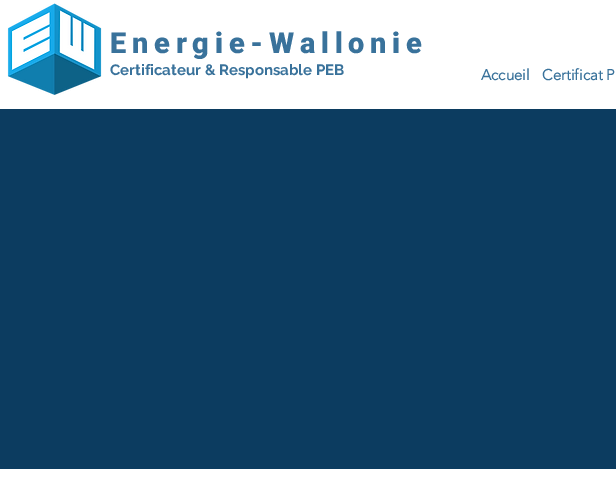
%!PS
<< /PageSize [616 487] >> setpagedevice
/rgb { 3 { 255 div 3 1 roll } repeat setrgbcolor } def
/font { [ exch dup neg 0 0 3 -1 roll 0 0 ] selectfont } def
/text { moveto show } def
/picture { 5 dict begin { /h /w /y /x /name } { exch def } forall
  gsave x y translate w h scale
  w h 8 [w 0 0 h 0 0] name (r) file false 3 colorimage grestore end } def
0 487 translate 1 -1 scale
4 setmiterlimit
255 255 255 rgb
0 0 616 487 rectfill
(img_01.rgb) 7 3 95 92 picture
12 60 96 rgb
0 109 616 360 rectfill
/Roboto-Black 29 font
57 114 155 rgb
110 53 moveto 5.75 0 (Energie-Wallonie) ashow
/Raleway-Bold 15 font
(Certificateur & Responsable PEB) 110 75 text
/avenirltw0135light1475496-Bold 15 font
(Accueil) 481 80 text
(Certificat P) 542 80 text
showpage
